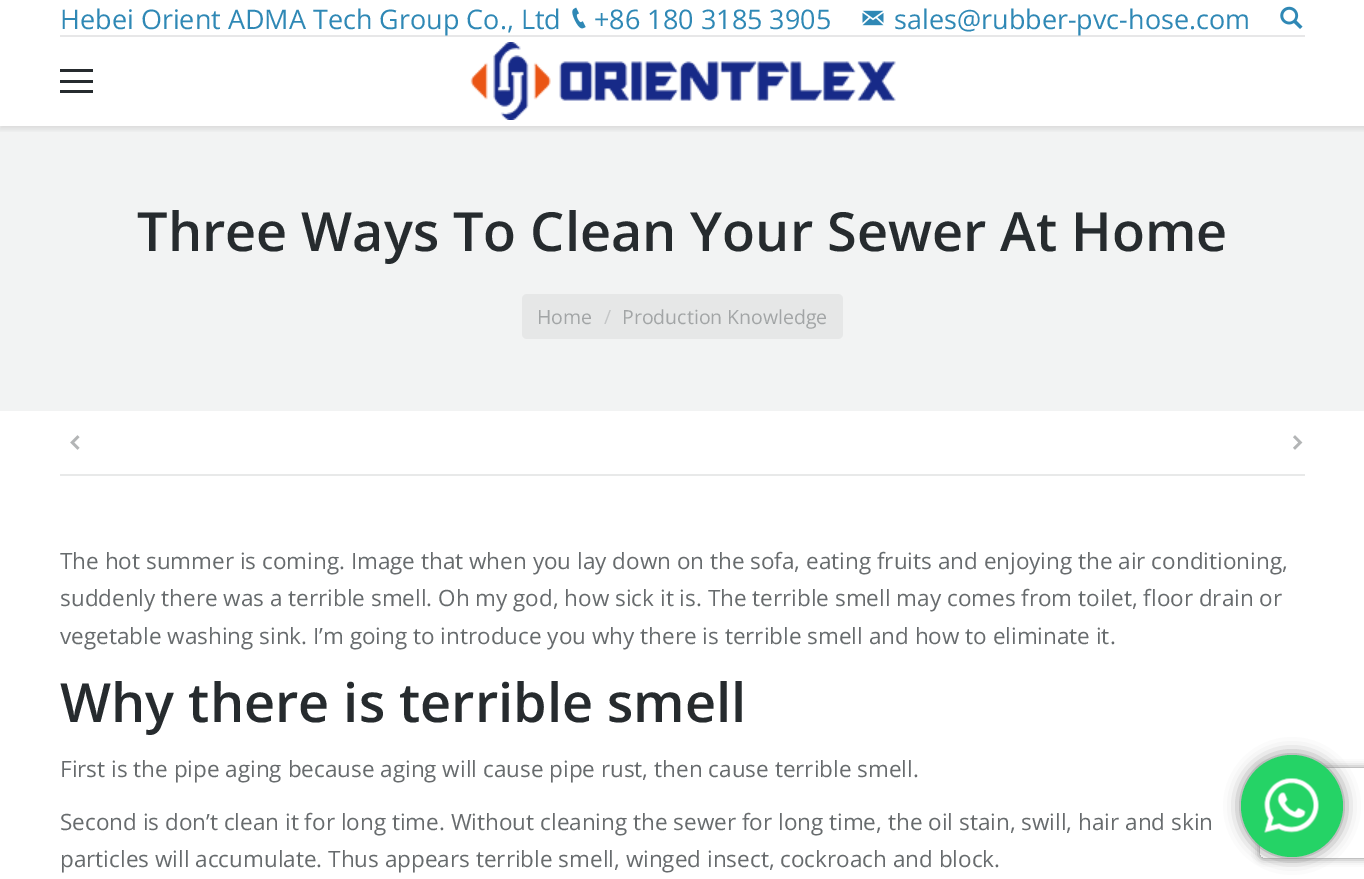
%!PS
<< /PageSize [1364 879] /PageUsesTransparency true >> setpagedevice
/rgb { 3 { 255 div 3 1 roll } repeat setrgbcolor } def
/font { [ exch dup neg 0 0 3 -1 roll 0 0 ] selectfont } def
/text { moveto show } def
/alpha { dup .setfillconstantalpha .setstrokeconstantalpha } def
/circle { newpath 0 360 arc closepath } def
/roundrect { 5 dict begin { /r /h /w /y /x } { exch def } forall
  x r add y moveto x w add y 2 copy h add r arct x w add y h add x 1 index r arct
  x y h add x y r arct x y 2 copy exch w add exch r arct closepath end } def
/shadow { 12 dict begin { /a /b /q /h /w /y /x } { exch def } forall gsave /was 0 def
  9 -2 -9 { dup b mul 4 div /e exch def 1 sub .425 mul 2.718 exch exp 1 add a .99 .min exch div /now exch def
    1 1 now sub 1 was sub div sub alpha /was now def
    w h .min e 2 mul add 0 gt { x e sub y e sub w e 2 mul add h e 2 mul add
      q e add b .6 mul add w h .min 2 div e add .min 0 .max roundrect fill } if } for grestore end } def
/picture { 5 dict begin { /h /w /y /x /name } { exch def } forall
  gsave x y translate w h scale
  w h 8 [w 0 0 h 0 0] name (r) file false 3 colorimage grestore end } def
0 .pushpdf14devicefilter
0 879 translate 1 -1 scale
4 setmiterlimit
255 255 255 rgb
0 0 1364 879 rectfill
242 243 243 rgb
0 126 1364 285 rectfill
gsave
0 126 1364 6 rectclip
0 0 0 rgb
0 0 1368 129 0 3 0.1 shadow
grestore
(img_01.rgb) 572 7 14 22 picture
(img_02.rgb) 862 10 22 16 picture
(img_03.rgb) 1280 6 23 23 picture
231 231 232 rgb
60 35 1245 2 rectfill
38 43 46 rgb
60 80 33 3 rectfill
60 69 33 3 rectfill
60 90 33 3 rectfill
(img_04.rgb) 470 42 426 78 picture
230 231 231 rgb
522 294 321 45 5 roundrect fill
232 233 233 rgb
60 474 1245 2 rectfill
(img_05.rgb) 70 435 10 15 picture
(img_06.rgb) 1293 435 10 15 picture
0 0 0 rgb
1241 755 102 102 51 8 0.5 shadow
gsave
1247 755 moveto 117 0 rlineto 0 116 rlineto -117 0 rlineto closepath 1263 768 moveto 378 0 rlineto 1.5 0 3 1.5 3 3 rcurveto 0 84 rlineto 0 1.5 -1.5 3 -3 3 rcurveto -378 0 rlineto -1.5 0 -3 -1.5 -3 -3 rcurveto 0 -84 rlineto 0 -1.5 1.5 -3 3 -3 rcurveto closepath eoclip newpath
128 128 128 rgb
1260 768 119 90 3 4 1 shadow
grestore
37 211 102 rgb
1292 806 51 circle fill
(img_07.rgb) 1264 778 55 55 picture
/OpenSans-Regular 27 font
47 136 181 rgb
(Hebei Orient ADMA Tech Group Co., Ltd) 60 29 text
(+86 180 3185 3905) 594 29 text
(sales@rubber-pvc-hose.com) 894 29 text
/OpenSans-SemiBold 54 font
38 43 46 rgb
(Three Ways To Clean Your Sewer At Home) 137 251 text
/OpenSans-Regular 19.5 font
162 165 166 rgb
(Home) 537 324 text
196 198 199 rgb
(/) 604 324 text
162 165 166 rgb
(Production Knowledge) 622 324 text
/OpenSans-Regular 22.5 font
103 107 109 rgb
(The hot summer is coming. Image that when you lay down on the sofa, eating fruits and enjoying the air conditioning,) 60 569 text
(suddenly there was a terrible smell. Oh my god, how sick it is. The terrible smell may comes from toilet, floor drain or) 60 606 text
(vegetable washing sink. I’m going to introduce you why there is terrible smell and how to eliminate it.) 60 644 text
/OpenSans-SemiBold 54 font
38 43 46 rgb
(Why there is terrible smell) 60 722 text
/OpenSans-Regular 22.5 font
103 107 109 rgb
(First is the pipe aging because aging will cause pipe rust, then cause terrible smell.) 60 777 text
(Second is don’t clean it for long time. Without cleaning the sewer for long time, the oil stain, swill, hair and skin) 60 830 text
(particles will accumulate. Thus appears terrible smell, winged insect, cockroach and block.) 60 867 text
.poppdf14devicefilter showpage
